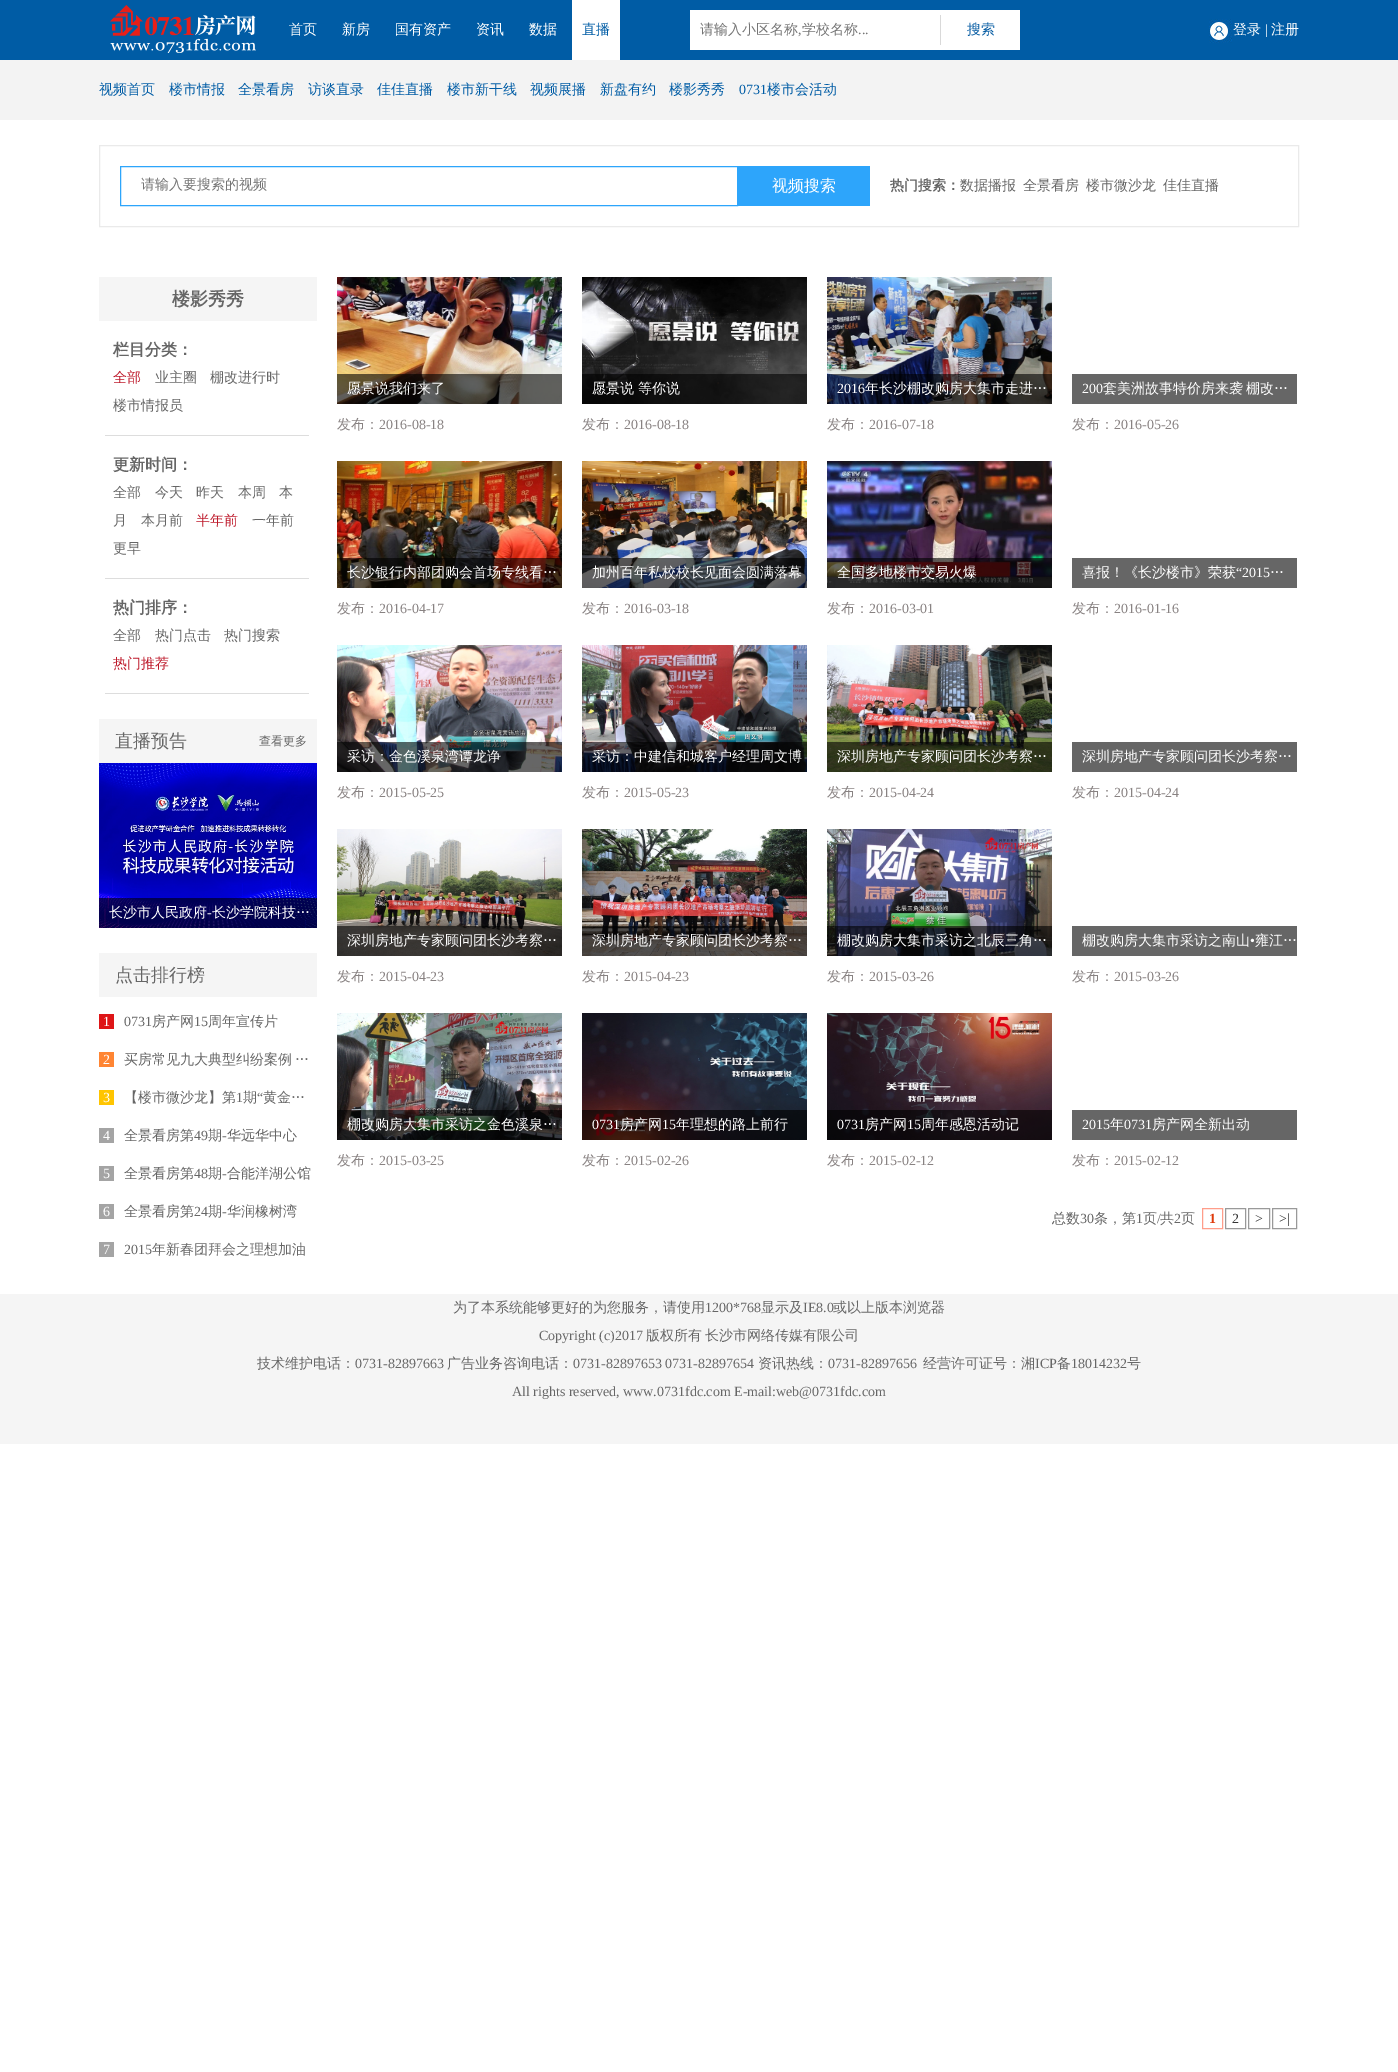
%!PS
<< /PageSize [1398 2072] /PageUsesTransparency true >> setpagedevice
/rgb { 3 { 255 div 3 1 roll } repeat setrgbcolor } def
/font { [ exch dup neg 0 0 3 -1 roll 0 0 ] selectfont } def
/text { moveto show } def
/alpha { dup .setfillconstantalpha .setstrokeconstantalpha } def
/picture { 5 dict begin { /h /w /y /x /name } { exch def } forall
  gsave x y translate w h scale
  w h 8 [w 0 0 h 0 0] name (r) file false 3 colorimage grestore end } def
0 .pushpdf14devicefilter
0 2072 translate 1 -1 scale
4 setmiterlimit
255 255 255 rgb
0 0 1398 2072 rectfill
0 92 165 rgb
0 0 1398 60 rectfill
(img_01.rgb) 110 5 146 48 picture
255 255 255 rgb
572 0 48 60 rectfill
690 10 330 40 rectfill
217 217 217 rgb
940 15 1 30 rectfill
(img_02.rgb) 1209 19 23 24 picture
243 243 243 rgb
0 60 1398 60 rectfill
234 234 234 rgb
99.5 145.5 1199 81 rectstroke
45 165 251 rgb
120.5 166.5 617 39 rectstroke
738 166 132 40 rectfill
245 245 245 rgb
99 277 218 44 rectfill
221 221 221 rgb
105 435 204 1 rectfill
105 578 204 1 rectfill
105 693 204 1 rectfill
245 245 245 rgb
99 719 218 44 rectfill
(img_03.rgb) 99 763 218 165 picture
0.6 alpha
0 0 0 rgb
99 898 218 30 rectfill
1 alpha
245 245 245 rgb
99 953 218 44 rectfill
222 21 23 rgb
99 1014 15 15 rectfill
255 133 51 rgb
99 1052 15 15 rectfill
255 197 0 rgb
99 1090 15 15 rectfill
164 164 164 rgb
99 1128 15 15 rectfill
99 1166 15 15 rectfill
99 1204 15 15 rectfill
99 1242 15 15 rectfill
(img_04.rgb) 337 277 225 127 picture
0.6 alpha
0 0 0 rgb
337 374 225 30 rectfill
1 alpha
(img_05.rgb) 582 277 225 127 picture
0.6 alpha
582 374 225 30 rectfill
1 alpha
(img_06.rgb) 827 277 225 127 picture
0.6 alpha
827 374 225 30 rectfill
1 alpha
102 102 102 rgb
1072 374 225 30 rectfill
(img_07.rgb) 337 461 225 127 picture
0.6 alpha
0 0 0 rgb
337 558 225 30 rectfill
1 alpha
(img_08.rgb) 582 461 225 127 picture
0.6 alpha
582 558 225 30 rectfill
1 alpha
(img_09.rgb) 827 461 225 127 picture
0.6 alpha
827 558 225 30 rectfill
1 alpha
102 102 102 rgb
1072 558 225 30 rectfill
(img_10.rgb) 337 645 225 127 picture
0.6 alpha
0 0 0 rgb
337 742 225 30 rectfill
1 alpha
(img_11.rgb) 582 645 225 127 picture
0.6 alpha
582 742 225 30 rectfill
1 alpha
(img_12.rgb) 827 645 225 127 picture
0.6 alpha
827 742 225 30 rectfill
1 alpha
102 102 102 rgb
1072 742 225 30 rectfill
(img_13.rgb) 337 829 225 127 picture
0.6 alpha
0 0 0 rgb
337 926 225 30 rectfill
1 alpha
(img_14.rgb) 582 829 225 127 picture
0.6 alpha
582 926 225 30 rectfill
1 alpha
(img_15.rgb) 827 829 225 127 picture
0.6 alpha
827 926 225 30 rectfill
1 alpha
102 102 102 rgb
1072 926 225 30 rectfill
(img_16.rgb) 337 1013 225 127 picture
0.6 alpha
0 0 0 rgb
337 1110 225 30 rectfill
1 alpha
(img_17.rgb) 582 1013 225 127 picture
0.6 alpha
582 1110 225 30 rectfill
1 alpha
(img_18.rgb) 827 1013 225 127 picture
0.6 alpha
827 1110 225 30 rectfill
1 alpha
102 102 102 rgb
1072 1110 225 30 rectfill
255 157 138 rgb
1202.5 1208.5 20 20 rectstroke
153 153 153 rgb
1225.5 1208.5 20 20 rectstroke
1248.5 1208.5 21 20 rectstroke
1272.5 1208.5 24 20 rectstroke
245 245 245 rgb
0 1294 1398 150 rectfill
/WenQuanYiZenHei-Medium 14 font
255 255 255 rgb
(首页) 289 34 text
(新房) 342 34 text
(国有资产) 395 34 text
(资讯) 476 34 text
(数据) 529 34 text
0 92 165 rgb
(直播) 582 34 text
117 117 117 rgb
(请输入小区名称) 700 34 text
/LiberationSerif-Regular 14 font
(,) 798 34 text
/WenQuanYiZenHei-Medium 14 font
(学校名称) 802 34 text
/LiberationSerif-Regular 14 font
(...) 858 34 text
/WenQuanYiZenHei-Medium 14 font
6 92 163 rgb
(搜索) 967 34 text
255 255 255 rgb
(登录) 1233 34 text
/LiberationSerif-Regular 14 font
(|) 1265 34 text
/WenQuanYiZenHei-Medium 14 font
(注册) 1271 34 text
0 92 165 rgb
(视频首页) 99 94 text
(楼市情报) 169 94 text
(全景看房) 238 94 text
(访谈直录) 308 94 text
(佳佳直播) 377 94 text
(楼市新干线) 447 94 text
(视频展播) 530 94 text
(新盘有约) 600 94 text
(楼影秀秀) 669 94 text
/LiberationSerif-Regular 14 font
(0731) 739 94 text
/WenQuanYiZenHei-Medium 14 font
(楼市会活动) 767 94 text
117 117 117 rgb
(请输入要搜索的视频) 141 189 text
/WenQuanYiZenHei-Medium 16 font
255 255 255 rgb
(视频搜索) 772 191 text
/WenQuanYiZenHei-Bold 14 font
102 102 102 rgb
(热门搜索：) 890 190 text
/WenQuanYiZenHei-Medium 14 font
(数据播报) 960 190 text
(全景看房) 1023 190 text
(楼市微沙龙) 1086 190 text
(佳佳直播) 1163 190 text
/WenQuanYiZenHei-Bold 18 font
(楼影秀秀) 172 305 text
/WenQuanYiZenHei-Bold 16 font
(栏目分类：) 113 355 text
/WenQuanYiZenHei-Medium 14 font
189 25 42 rgb
(全部) 113 382 text
102 102 102 rgb
(业主圈) 155 382 text
(棚改进行时) 210 382 text
(楼市情报员) 113 410 text
/WenQuanYiZenHei-Bold 16 font
(更新时间：) 113 470 text
/WenQuanYiZenHei-Medium 14 font
(全部) 113 497 text
(今天) 155 497 text
(昨天) 196 497 text
(本周) 238 497 text
(本) 279 497 text
(月) 113 525 text
(本月前) 141 525 text
189 25 42 rgb
(半年前) 196 525 text
102 102 102 rgb
(一年前) 252 525 text
(更早) 113 553 text
/WenQuanYiZenHei-Bold 16 font
(热门排序：) 113 613 text
/WenQuanYiZenHei-Medium 14 font
(全部) 113 640 text
(热门点击) 155 640 text
(热门搜索) 224 640 text
189 25 42 rgb
(热门推荐) 113 668 text
/WenQuanYiZenHei-Medium 18 font
102 102 102 rgb
(直播预告) 115 747 text
/WenQuanYiZenHei-Medium 12 font
(查看更多) 259 745 text
/WenQuanYiZenHei-Medium 14 font
255 255 255 rgb
(长沙市人民政府) 109 917 text
/LiberationSerif-Regular 14 font
(-) 207 917 text
/WenQuanYiZenHei-Medium 14 font
(长沙学院科技…) 212 917 text
/WenQuanYiZenHei-Medium 18 font
102 102 102 rgb
(点击排行榜) 115 981 text
/LiberationSerif-Regular 14 font
255 255 255 rgb
(1) 103 1026 text
102 102 102 rgb
(0731) 124 1026 text
/WenQuanYiZenHei-Medium 14 font
(房产网) 152 1026 text
/LiberationSerif-Regular 14 font
(15) 194 1026 text
/WenQuanYiZenHei-Medium 14 font
(周年宣传片) 208 1026 text
/LiberationSerif-Regular 14 font
255 255 255 rgb
(2) 103 1064 text
/WenQuanYiZenHei-Medium 14 font
102 102 102 rgb
124 1064 moveto -1 0 32 (买房常见九大典型纠纷案例 …) widthshow
/LiberationSerif-Regular 14 font
255 255 255 rgb
(3) 103 1102 text
/WenQuanYiZenHei-Medium 14 font
102 102 102 rgb
(【楼市微沙龙】第) 124 1102 text
/LiberationSerif-Regular 14 font
(1) 236 1102 text
/WenQuanYiZenHei-Medium 14 font
(期) 243 1102 text
/LiberationSerif-Regular 14 font
(“) 257 1102 text
/WenQuanYiZenHei-Medium 14 font
(黄金…) 263 1102 text
/LiberationSerif-Regular 14 font
255 255 255 rgb
(4) 103 1140 text
/WenQuanYiZenHei-Medium 14 font
102 102 102 rgb
(全景看房第) 124 1140 text
/LiberationSerif-Regular 14 font
(49) 194 1140 text
/WenQuanYiZenHei-Medium 14 font
(期) 208 1140 text
/LiberationSerif-Regular 14 font
(-) 222 1140 text
/WenQuanYiZenHei-Medium 14 font
(华远华中心) 227 1140 text
/LiberationSerif-Regular 14 font
255 255 255 rgb
(5) 103 1178 text
/WenQuanYiZenHei-Medium 14 font
102 102 102 rgb
(全景看房第) 124 1178 text
/LiberationSerif-Regular 14 font
(48) 194 1178 text
/WenQuanYiZenHei-Medium 14 font
(期) 208 1178 text
/LiberationSerif-Regular 14 font
(-) 222 1178 text
/WenQuanYiZenHei-Medium 14 font
(合能洋湖公馆) 227 1178 text
/LiberationSerif-Regular 14 font
255 255 255 rgb
(6) 103 1216 text
/WenQuanYiZenHei-Medium 14 font
102 102 102 rgb
(全景看房第) 124 1216 text
/LiberationSerif-Regular 14 font
(24) 194 1216 text
/WenQuanYiZenHei-Medium 14 font
(期) 208 1216 text
/LiberationSerif-Regular 14 font
(-) 222 1216 text
/WenQuanYiZenHei-Medium 14 font
(华润橡树湾) 227 1216 text
/LiberationSerif-Regular 14 font
255 255 255 rgb
(7) 103 1254 text
102 102 102 rgb
(2015) 124 1254 text
/WenQuanYiZenHei-Medium 14 font
(年新春团拜会之理想加油) 152 1254 text
255 255 255 rgb
(愿景说我们来了) 347 393 text
136 130 130 rgb
(发布：) 337 429 text
/LiberationSerif-Regular 14 font
(2016-08-18) 379 429 text
/WenQuanYiZenHei-Medium 14 font
255 255 255 rgb
(愿景说) 592 393 text
(等你说) 638 393 text
136 130 130 rgb
(发布：) 582 429 text
/LiberationSerif-Regular 14 font
(2016-08-18) 624 429 text
255 255 255 rgb
(2016) 837 393 text
/WenQuanYiZenHei-Medium 14 font
(年长沙棚改购房大集市走进…) 865 393 text
136 130 130 rgb
(发布：) 827 429 text
/LiberationSerif-Regular 14 font
(2016-07-18) 869 429 text
255 255 255 rgb
(200) 1082 393 text
/WenQuanYiZenHei-Medium 14 font
1103 393 moveto -1 0 32 (套美洲故事特价房来袭 棚改…) widthshow
136 130 130 rgb
(发布：) 1072 429 text
/LiberationSerif-Regular 14 font
(2016-05-26) 1114 429 text
/WenQuanYiZenHei-Medium 14 font
255 255 255 rgb
(长沙银行内部团购会首场专线看…) 347 577 text
136 130 130 rgb
(发布：) 337 613 text
/LiberationSerif-Regular 14 font
(2016-04-17) 379 613 text
/WenQuanYiZenHei-Medium 14 font
255 255 255 rgb
(加州百年私校校长见面会圆满落幕) 592 577 text
136 130 130 rgb
(发布：) 582 613 text
/LiberationSerif-Regular 14 font
(2016-03-18) 624 613 text
/WenQuanYiZenHei-Medium 14 font
255 255 255 rgb
(全国多地楼市交易火爆) 837 577 text
136 130 130 rgb
(发布：) 827 613 text
/LiberationSerif-Regular 14 font
(2016-03-01) 869 613 text
/WenQuanYiZenHei-Medium 14 font
255 255 255 rgb
(喜报！《长沙楼市》荣获) 1082 577 text
/LiberationSerif-Regular 14 font
(“2015) 1236 577 text
/WenQuanYiZenHei-Medium 14 font
(…) 1270 577 text
136 130 130 rgb
(发布：) 1072 613 text
/LiberationSerif-Regular 14 font
(2016-01-16) 1114 613 text
/WenQuanYiZenHei-Medium 14 font
255 255 255 rgb
(采访：金色溪泉湾谭龙诤) 347 761 text
136 130 130 rgb
(发布：) 337 797 text
/LiberationSerif-Regular 14 font
(2015-05-25) 379 797 text
/WenQuanYiZenHei-Medium 14 font
255 255 255 rgb
(采访：中建信和城客户经理周文博) 592 761 text
136 130 130 rgb
(发布：) 582 797 text
/LiberationSerif-Regular 14 font
(2015-05-23) 624 797 text
/WenQuanYiZenHei-Medium 14 font
255 255 255 rgb
(深圳房地产专家顾问团长沙考察…) 837 761 text
136 130 130 rgb
(发布：) 827 797 text
/LiberationSerif-Regular 14 font
(2015-04-24) 869 797 text
/WenQuanYiZenHei-Medium 14 font
255 255 255 rgb
(深圳房地产专家顾问团长沙考察…) 1082 761 text
136 130 130 rgb
(发布：) 1072 797 text
/LiberationSerif-Regular 14 font
(2015-04-24) 1114 797 text
/WenQuanYiZenHei-Medium 14 font
255 255 255 rgb
(深圳房地产专家顾问团长沙考察…) 347 945 text
136 130 130 rgb
(发布：) 337 981 text
/LiberationSerif-Regular 14 font
(2015-04-23) 379 981 text
/WenQuanYiZenHei-Medium 14 font
255 255 255 rgb
(深圳房地产专家顾问团长沙考察…) 592 945 text
136 130 130 rgb
(发布：) 582 981 text
/LiberationSerif-Regular 14 font
(2015-04-23) 624 981 text
/WenQuanYiZenHei-Medium 14 font
255 255 255 rgb
(棚改购房大集市采访之北辰三角…) 837 945 text
136 130 130 rgb
(发布：) 827 981 text
/LiberationSerif-Regular 14 font
(2015-03-26) 869 981 text
/WenQuanYiZenHei-Medium 14 font
255 255 255 rgb
(棚改购房大集市采访之南山) 1082 945 text
/LiberationSerif-Regular 14 font
(•) 1250 945 text
/WenQuanYiZenHei-Medium 14 font
(雍江…) 1255 945 text
136 130 130 rgb
(发布：) 1072 981 text
/LiberationSerif-Regular 14 font
(2015-03-26) 1114 981 text
/WenQuanYiZenHei-Medium 14 font
255 255 255 rgb
(棚改购房大集市采访之金色溪泉…) 347 1129 text
136 130 130 rgb
(发布：) 337 1165 text
/LiberationSerif-Regular 14 font
(2015-03-25) 379 1165 text
255 255 255 rgb
(0731) 592 1129 text
/WenQuanYiZenHei-Medium 14 font
(房产网) 620 1129 text
/LiberationSerif-Regular 14 font
(15) 662 1129 text
/WenQuanYiZenHei-Medium 14 font
(年理想的路上前行) 676 1129 text
136 130 130 rgb
(发布：) 582 1165 text
/LiberationSerif-Regular 14 font
(2015-02-26) 624 1165 text
255 255 255 rgb
(0731) 837 1129 text
/WenQuanYiZenHei-Medium 14 font
(房产网) 865 1129 text
/LiberationSerif-Regular 14 font
(15) 907 1129 text
/WenQuanYiZenHei-Medium 14 font
(周年感恩活动记) 921 1129 text
136 130 130 rgb
(发布：) 827 1165 text
/LiberationSerif-Regular 14 font
(2015-02-12) 869 1165 text
255 255 255 rgb
(2015) 1082 1129 text
/WenQuanYiZenHei-Medium 14 font
(年) 1110 1129 text
/LiberationSerif-Regular 14 font
(0731) 1124 1129 text
/WenQuanYiZenHei-Medium 14 font
(房产网全新出动) 1152 1129 text
136 130 130 rgb
(发布：) 1072 1165 text
/LiberationSerif-Regular 14 font
(2015-02-12) 1114 1165 text
/WenQuanYiZenHei-Medium 14 font
102 102 102 rgb
(总数) 1052 1223 text
/LiberationSerif-Regular 14 font
(30) 1080 1223 text
/WenQuanYiZenHei-Medium 14 font
(条，第) 1094 1223 text
/LiberationSerif-Regular 14 font
(1) 1136 1223 text
/WenQuanYiZenHei-Medium 14 font
(页) 1143 1223 text
/LiberationSerif-Regular 14 font
(/) 1157 1223 text
/WenQuanYiZenHei-Medium 14 font
(共) 1160 1223 text
/LiberationSerif-Regular 14 font
(2) 1174 1223 text
/WenQuanYiZenHei-Medium 14 font
(页) 1181 1223 text
/LiberationSerif-Bold 14 font
223 58 11 rgb
(1) 1209 1223 text
/LiberationSerif-Regular 14 font
51 51 51 rgb
(2) 1232 1223 text
(>) 1255 1223 text
(>|) 1279 1223 text
/WenQuanYiZenHei-Medium 14 font
102 102 102 rgb
(为了本系统能够更好的为您服务，请使用) 453 1312 text
/LiberationSerif-Regular 14 font
(1200*768) 705 1312 text
/WenQuanYiZenHei-Medium 14 font
(显示及) 761 1312 text
/LiberationSerif-Regular 14 font
(IE8.0) 803 1312 text
/WenQuanYiZenHei-Medium 14 font
(或以上版本浏览器) 833 1312 text
/LiberationSerif-Regular 14 font
(Copyright \(c\)2017) 539 1340 text
/WenQuanYiZenHei-Medium 14 font
(版权所有) 646 1340 text
(长沙市网络传媒有限公司) 705 1340 text
(技术维护电话：) 257 1368 text
/LiberationSerif-Regular 14 font
(0731-82897663) 355 1368 text
/WenQuanYiZenHei-Medium 14 font
(广告业务咨询电话：) 447 1368 text
/LiberationSerif-Regular 14 font
(0731-82897653 0731-82897654) 573 1368 text
/WenQuanYiZenHei-Medium 14 font
(资讯热线：) 758 1368 text
/LiberationSerif-Regular 14 font
(0731-82897656) 828 1368 text
/WenQuanYiZenHei-Medium 14 font
(经营许可证号：湘) 923 1368 text
/LiberationSerif-Regular 14 font
(ICP) 1035 1368 text
/WenQuanYiZenHei-Medium 14 font
(备) 1057 1368 text
/LiberationSerif-Regular 14 font
(18014232) 1071 1368 text
/WenQuanYiZenHei-Medium 14 font
(号) 1127 1368 text
/LiberationSerif-Regular 14 font
(All rights reserved, www.0731fdc.com E-mail:web@0731fdc.com) 512 1396 text
.poppdf14devicefilter showpage
